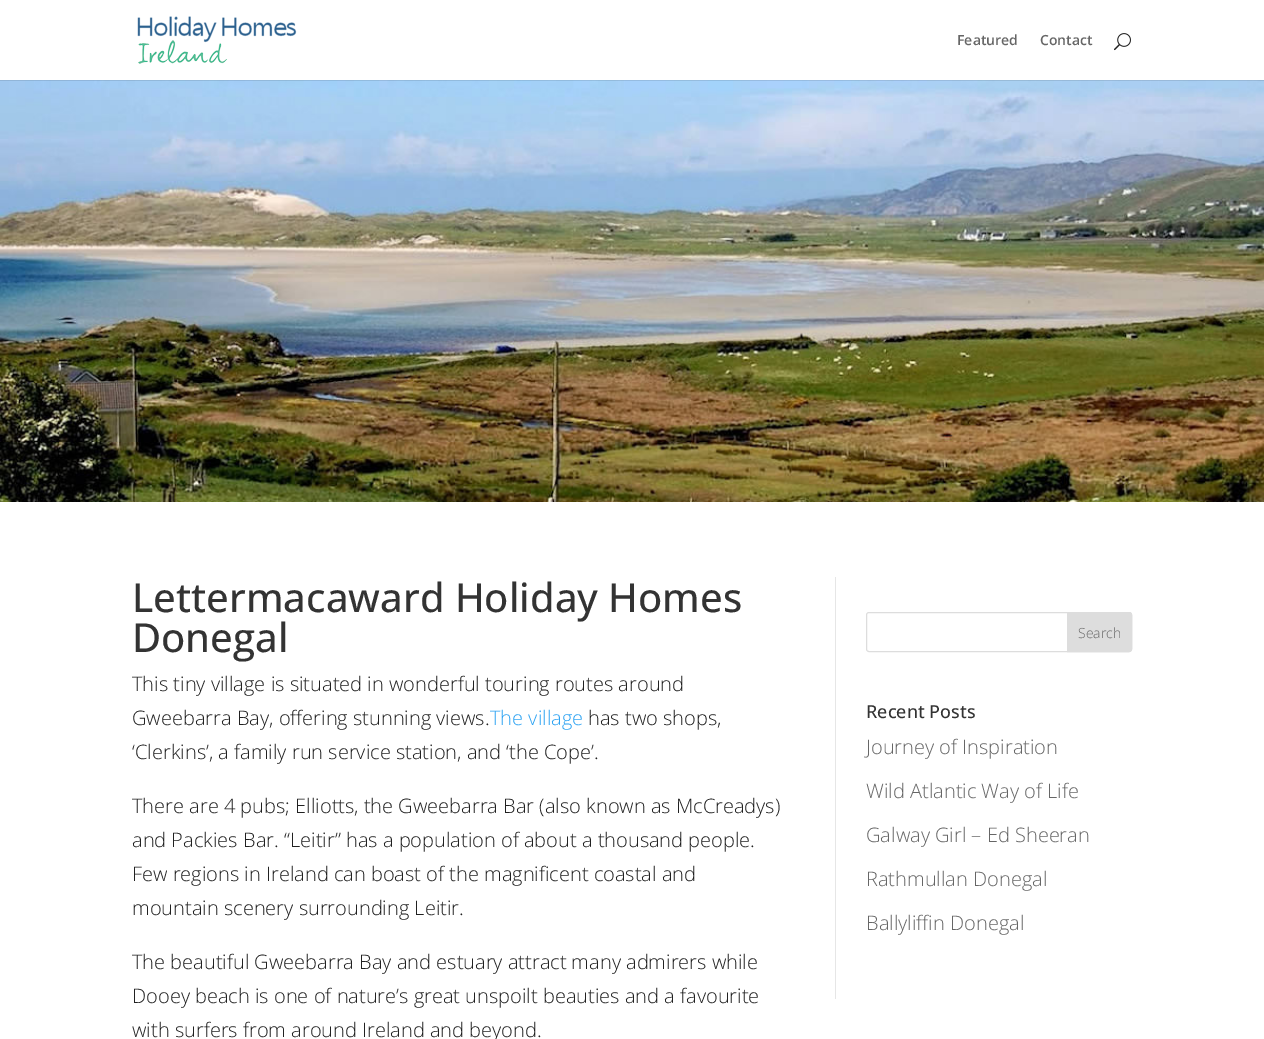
%!PS
<< /PageSize [1264 1039] /PageUsesTransparency true >> setpagedevice
/rgb { 3 { 255 div 3 1 roll } repeat setrgbcolor } def
/font { [ exch dup neg 0 0 3 -1 roll 0 0 ] selectfont } def
/text { moveto show } def
/alpha { dup .setfillconstantalpha .setstrokeconstantalpha } def
/roundrect { 5 dict begin { /r /h /w /y /x } { exch def } forall
  x r add y moveto x w add y 2 copy h add r arct x w add y h add x 1 index r arct
  x y h add x y r arct x y 2 copy exch w add exch r arct closepath end } def
/picture { 5 dict begin { /h /w /y /x /name } { exch def } forall
  gsave x y translate w h scale
  w h 8 [w 0 0 h 0 0] name (r) file false 3 colorimage grestore end } def
0 .pushpdf14devicefilter
0 1039 translate 1 -1 scale
4 setmiterlimit
255 255 255 rgb
0 0 1264 1039 rectfill
(img_03.rgb) 0 80 1264 422 picture
0.1 alpha
0 0 0 rgb
0 80 1264 1 rectfill
1 alpha
(img_01.rgb) 137 16 160 48 picture
(img_02.rgb) 1114 33 17 18 picture
230 230 230 rgb
835 577 1 422 rectfill
221 221 221 rgb
866.5 612.5 265 39 2.5 roundrect stroke
1067.5 612.5 moveto 61.5 0 rlineto 1.5 0 2.5 1 2.5 2.5 rcurveto 0 34 rlineto 0 1.5 -1 2.5 -2.5 2.5 rcurveto -61.5 0 rlineto closepath gsave fill grestore
stroke
/OpenSans-SemiBold 14 font
102 102 102 rgb
(Featured) 957 45 text
(Contact) 1040 45 text
/OpenSans-Medium 40 font
51 51 51 rgb
(Lettermacaward Holiday Homes) 132 612 text
(Donegal) 132 652 text
/OpenSans-Light 20 font
33 33 33 rgb
(This tiny village is situated in wonderful touring routes around) 132 691 text
(Gweebarra Bay, offering stunning views.) 132 725 text
46 163 242 rgb
(The village) 490 725 text
33 33 33 rgb
(has two shops,) 588 725 text
(‘Clerkins’, a family run service station, and ‘the Cope’.) 132 759 text
(There are 4 pubs; Elliotts, the Gweebarra Bar \(also known as McCreadys\)) 132 813 text
(and Packies Bar. “Leitir” has a population of about a thousand people.) 132 847 text
(Few regions in Ireland can boast of the magnificent coastal and) 132 881 text
(mountain scenery surrounding Leitir.) 132 915 text
(The beautiful Gweebarra Bay and estuary attract many admirers while) 132 969 text
(Dooey beach is one of nature’s great unspoilt beauties and a favourite) 132 1003 text
(with surfers from around Ireland and beyond.) 132 1037 text
/OpenSans-Light 14 font
102 102 102 rgb
(Search) 1078 638 text
/OpenSans-Medium 18 font
51 51 51 rgb
(Recent Posts) 866 718 text
/OpenSans-Light 20 font
102 102 102 rgb
(Journey of Inspiration) 866 754 text
(Wild Atlantic Way of Life) 866 798 text
(Galway Girl – Ed Sheeran) 866 842 text
(Rathmullan Donegal) 866 886 text
(Ballyliffin Donegal) 866 930 text
.poppdf14devicefilter showpage
